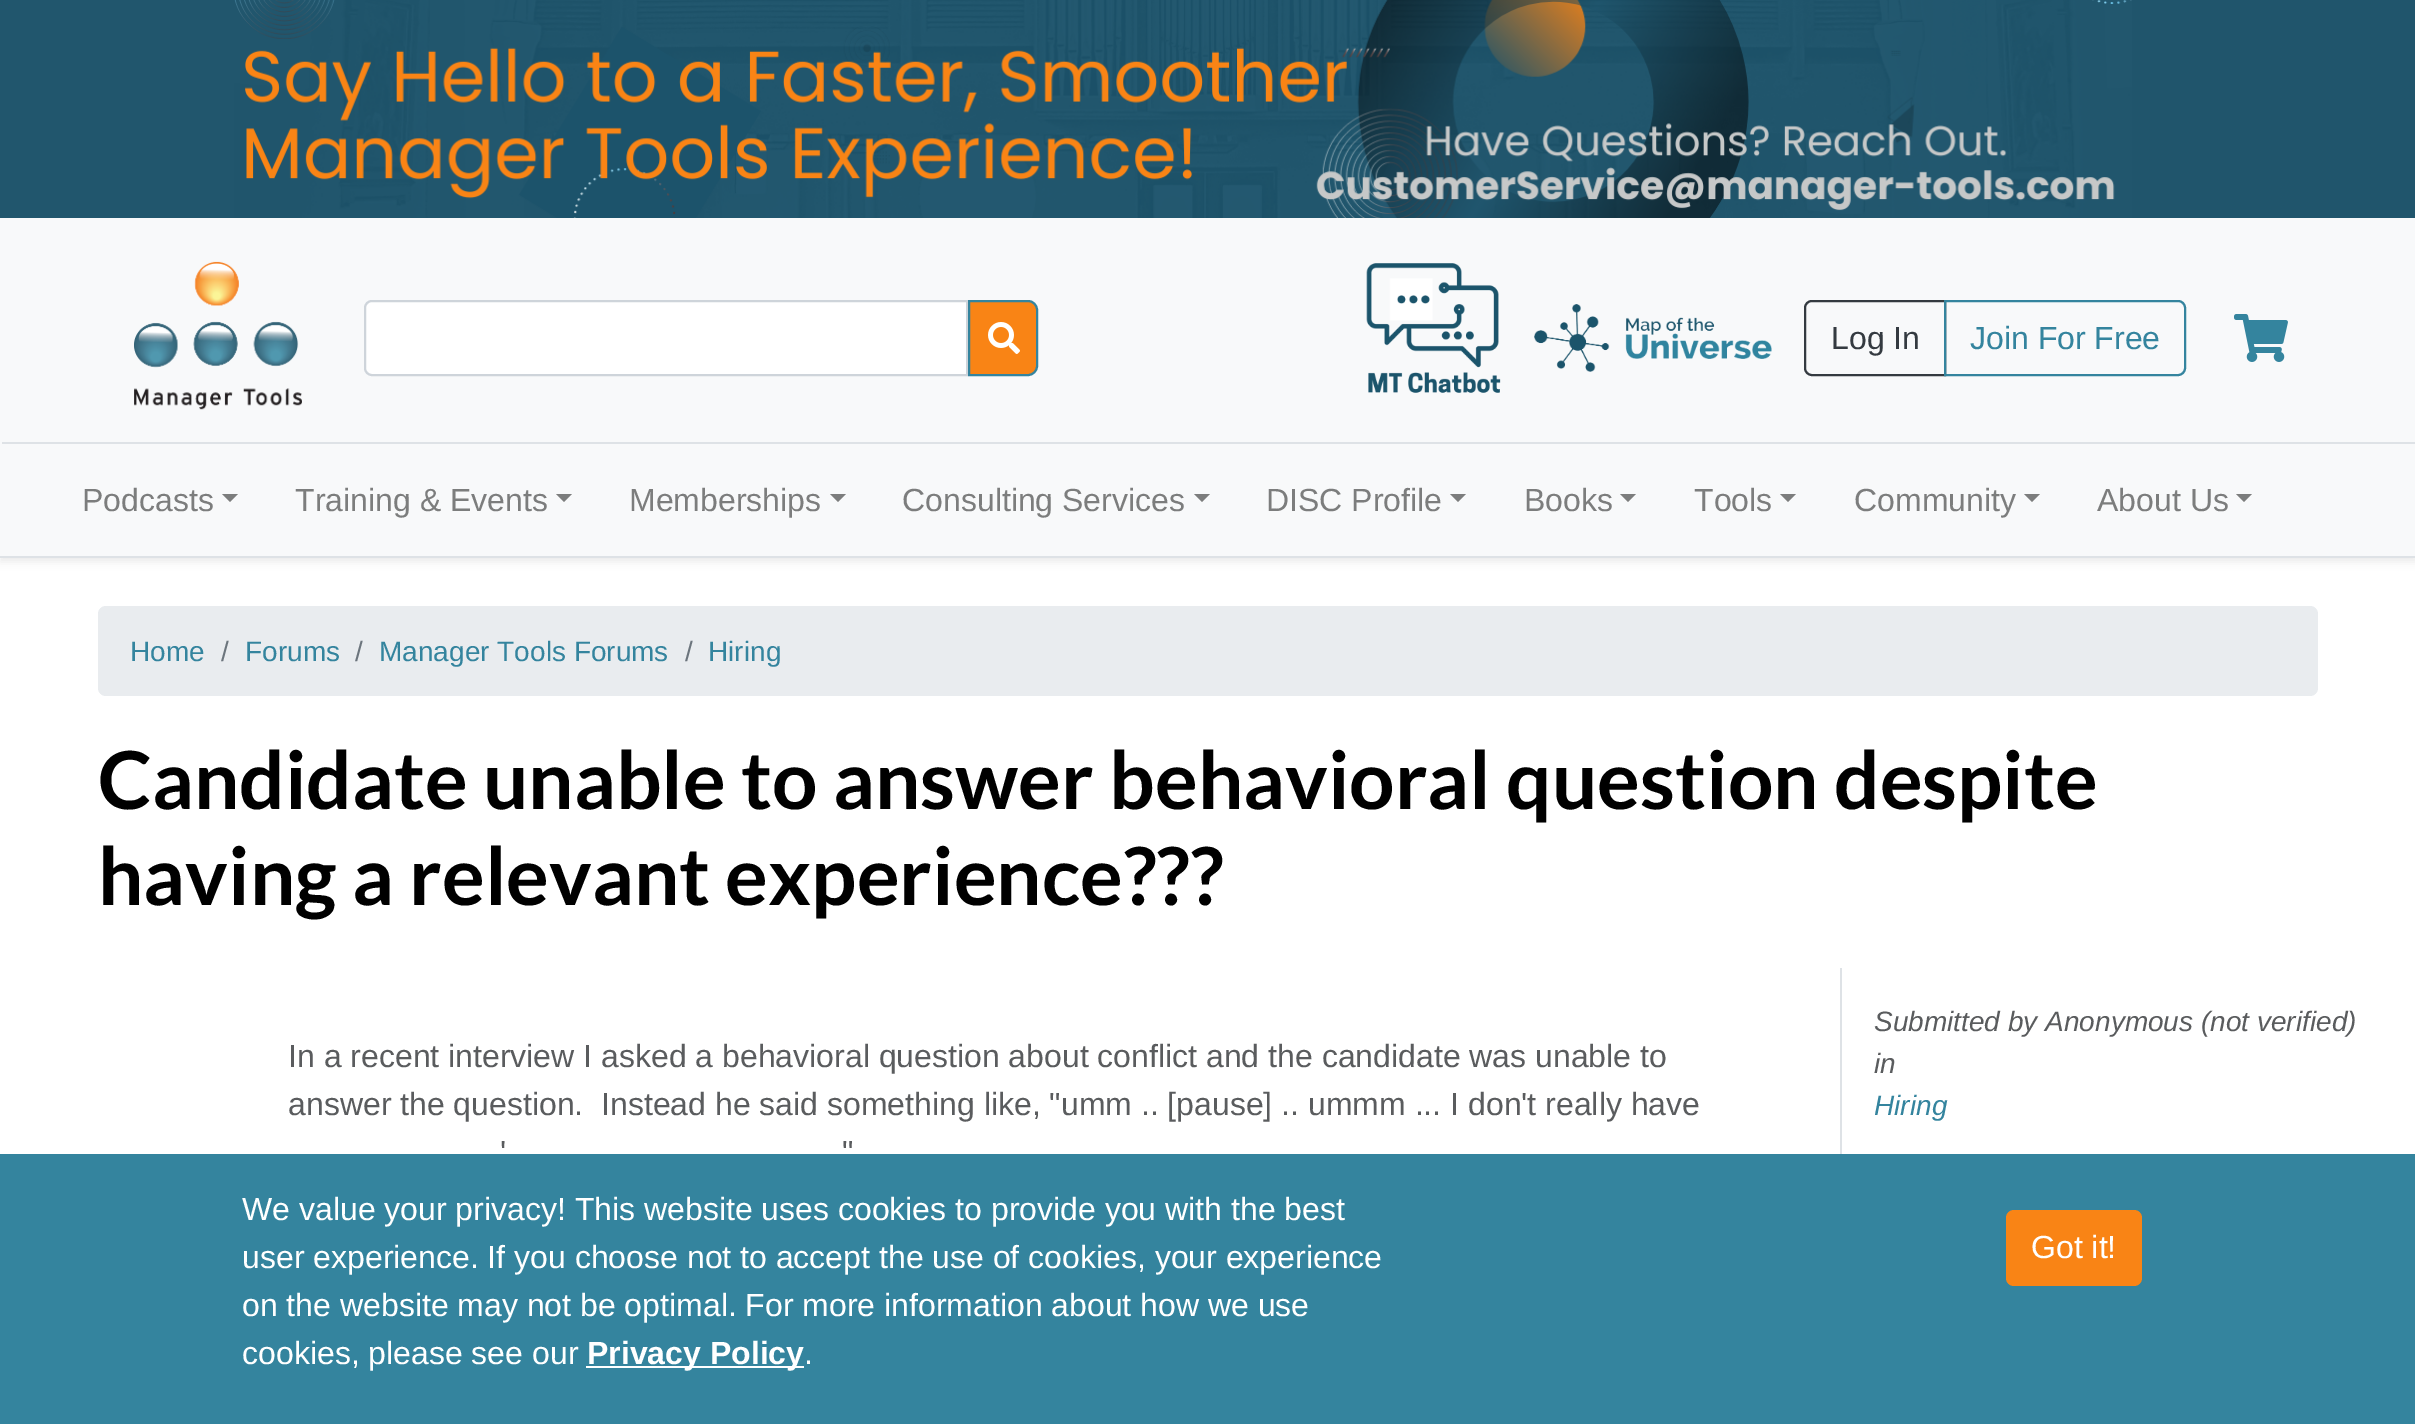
%!PS
<< /PageSize [2415 1424] /PageUsesTransparency true >> setpagedevice
/rgb { 3 { 255 div 3 1 roll } repeat setrgbcolor } def
/font { [ exch dup neg 0 0 3 -1 roll 0 0 ] selectfont } def
/text { moveto show } def
/alpha { dup .setfillconstantalpha .setstrokeconstantalpha } def
/roundrect { 5 dict begin { /r /h /w /y /x } { exch def } forall
  x r add y moveto x w add y 2 copy h add r arct x w add y h add x 1 index r arct
  x y h add x y r arct x y 2 copy exch w add exch r arct closepath end } def
/shadow { 12 dict begin { /a /b /q /h /w /y /x } { exch def } forall gsave /was 0 def
  9 -2 -9 { dup b mul 4 div /e exch def 1 sub .425 mul 2.718 exch exp 1 add a .99 .min exch div /now exch def
    1 1 now sub 1 was sub div sub alpha /was now def
    w h .min e 2 mul add 0 gt { x e sub y e sub w e 2 mul add h e 2 mul add
      q e add b .6 mul add w h .min 2 div e add .min 0 .max roundrect fill } if } for grestore end } def
/picture { 5 dict begin { /h /w /y /x /name } { exch def } forall
  gsave x y translate w h scale
  w h 8 [w 0 0 h 0 0] name (r) file false 3 colorimage grestore end } def
0 .pushpdf14devicefilter
0 1424 translate 1 -1 scale
4 setmiterlimit
255 255 255 rgb
0 0 2415 1424 rectfill
gsave 0 0 moveto 2415 0 rlineto 0 218 rlineto -2415 0 rlineto closepath clip newpath
<< /ShadingType 2 /ColorSpace /DeviceRGB /Coords [1162 402 1254 -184] /Extend [true true] /Function << /FunctionType 3 /Domain [0 1] /Functions [<< /FunctionType 2 /Domain [0 1] /C0 [0.129 0.337 0.427] /C1 [0.129 0.337 0.427] /N 1 >> << /FunctionType 2 /Domain [0 1] /C0 [0.125 0.333 0.424] /C1 [0.125 0.333 0.424] /N 1 >>] /Bounds [0.5] /Encode [0 1 0 1] >> >> shfill grestore
(img_01.rgb) 234 0 1898 218 picture
0 0 0 rgb
0 222 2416 340 0 4 0.07 shadow
248 249 250 rgb
0 218 2415 338 rectfill
222 226 230 rgb
0 556 2415 2 rectfill
(img_02.rgb) 134 261 168 149 picture
255 255 255 rgb
372 301 moveto 595 0 rlineto 0 74 rlineto -595 0 rlineto -4 0 -7 -3 -7 -7 rcurveto 0 -60 rlineto 0 -4 3 -7 7 -7 rcurveto closepath gsave fill grestore
206 212 218 rgb
2 setlinewidth
stroke
249 132 21 rgb
969 301 moveto 59 0 rlineto 5 0 9 4 9 9 rcurveto 0 56 rlineto 0 5 -4 9 -9 9 rcurveto -59 0 rlineto closepath gsave fill grestore
52 132 158 rgb
stroke
(img_03.rgb) 988 322 32 32 picture
(img_04.rgb) 1366 263 135 130 picture
(img_05.rgb) 1534 304 238 68 picture
52 58 64 rgb
1812 301 moveto 133 0 rlineto 0 74 rlineto -133 0 rlineto -4 0 -7 -3 -7 -7 rcurveto 0 -60 rlineto 0 -4 3 -7 7 -7 rcurveto closepath stroke
52 132 158 rgb
1945 301 moveto 233 0 rlineto 4 0 7 3 7 7 rcurveto 0 60 rlineto 0 4 -3 7 -7 7 rcurveto -233 0 rlineto closepath stroke
(img_06.rgb) 2234 314 54 48 picture
222 226 230 rgb
2 442 2413 2 rectfill
124 125 125 rgb
222 494 moveto 16 0 rlineto -8 8 rlineto closepath fill
556 494 moveto 16 0 rlineto -8 8 rlineto closepath fill
830 494 moveto 16 0 rlineto -8 8 rlineto closepath fill
1194 494 moveto 16 0 rlineto -8 8 rlineto closepath fill
1450 494 moveto 16 0 rlineto -8 8 rlineto closepath fill
1620 494 moveto 16 0 rlineto -8 8 rlineto closepath fill
1780 494 moveto 16 0 rlineto -8 8 rlineto closepath fill
2024 494 moveto 16 0 rlineto -8 8 rlineto closepath fill
2236 494 moveto 16 0 rlineto -8 8 rlineto closepath fill
233 236 239 rgb
98 606 2220 90 8 roundrect fill
222 226 230 rgb
1840 968 2 186 rectfill
52 132 158 rgb
0 1154 2415 270 rectfill
255 255 255 rgb
586 1366 218 2 rectfill
249 132 21 rgb
2006 1210 136 76 8 roundrect fill
/LiberationSans-Regular 32 font
52 58 64 rgb
(Log In) 1831 349 text
52 132 158 rgb
(Join For Free) 1970 349 text
124 125 125 rgb
(Podcasts) 82 511 text
(Training & Events) 295 511 text
(Memberships) 629 511 text
(Consulting Services) 902 511 text
(DISC Profile) 1266 511 text
(Books) 1524 511 text
(Tools) 1694 511 text
(Community) 1854 511 text
(About Us) 2097 511 text
/LiberationSans-Regular 28 font
52 132 158 rgb
(Home) 130 661 text
108 117 125 rgb
(/) 221 661 text
52 132 158 rgb
(Forums) 245 661 text
108 117 125 rgb
(/) 355 661 text
52 132 158 rgb
(Manager Tools Forums) 379 661 text
108 117 125 rgb
(/) 685 661 text
52 132 158 rgb
(Hiring) 708 661 text
/Lato-Bold 80 font
0 0 0 rgb
(Candidate unable to answer behavioral question despite) 98 809 text
(having a relevant experience???) 98 905 text
/LiberationSans-Regular 32 font
90 92 94 rgb
(In a recent interview I asked a behavioral question about conflict and the candidate was unable to) 288 1067 text
(answer the question.  Instead he said something like, "umm .. [pause] .. ummm ... I don't really have) 288 1115 text
(') 500 1163 text
(") 842 1163 text
/LiberationSans-Italic 28 font
(Submitted by Anonymous \(not verified\)) 1874 1031 text
(in) 1874 1073 text
52 132 158 rgb
(Hiring) 1874 1115 text
/LiberationSans-Regular 32 font
255 255 255 rgb
(We value your privacy! This website uses cookies to provide you with the best) 242 1220 text
(user experience. If you choose not to accept the use of cookies, your experience) 242 1268 text
(on the website may not be optimal. For more information about how we use) 242 1316 text
(cookies, please see our) 242 1364 text
/LiberationSans-Bold 32 font
(Privacy Policy) 587 1364 text
/LiberationSans-Regular 32 font
(.) 804 1364 text
(Got it!) 2031 1258 text
.poppdf14devicefilter showpage
